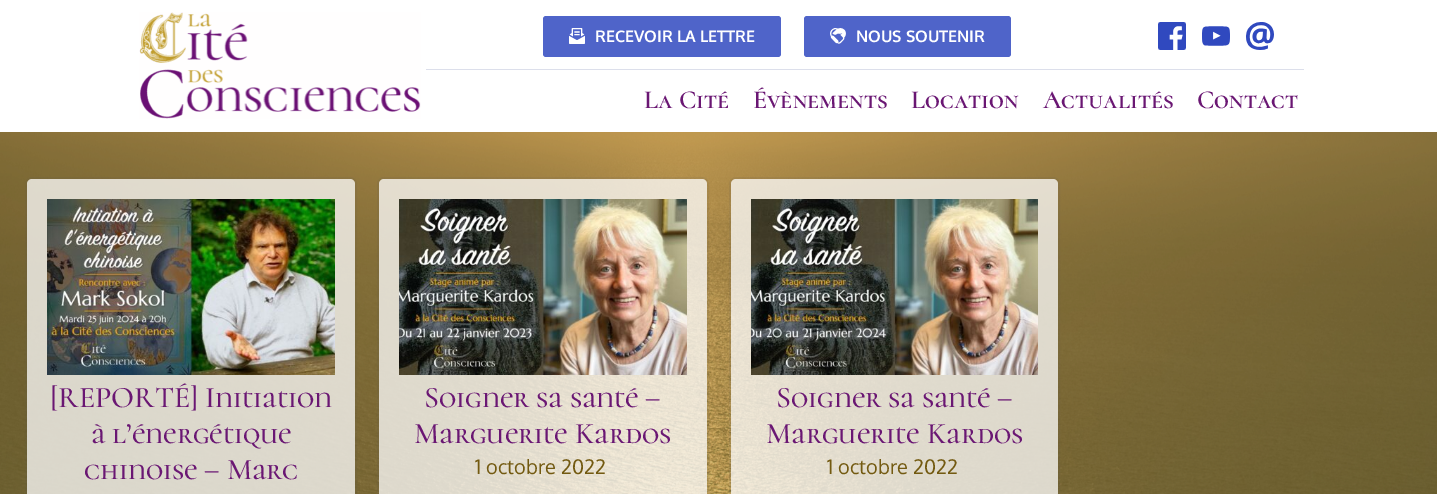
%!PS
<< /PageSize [1437 494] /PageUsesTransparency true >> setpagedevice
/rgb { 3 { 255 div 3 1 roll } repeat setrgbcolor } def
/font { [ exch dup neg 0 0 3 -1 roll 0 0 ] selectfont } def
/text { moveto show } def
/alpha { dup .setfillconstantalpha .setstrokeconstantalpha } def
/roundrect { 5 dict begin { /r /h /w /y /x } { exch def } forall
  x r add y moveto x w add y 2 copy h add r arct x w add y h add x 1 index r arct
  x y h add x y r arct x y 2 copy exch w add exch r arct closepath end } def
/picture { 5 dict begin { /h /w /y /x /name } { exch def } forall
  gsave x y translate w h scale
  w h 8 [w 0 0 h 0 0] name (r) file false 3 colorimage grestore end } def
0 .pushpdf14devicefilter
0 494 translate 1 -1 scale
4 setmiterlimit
255 255 255 rgb
0 0 1437 494 rectfill
(img_01.rgb) 139 12 282 107 picture
79 100 201 rgb
543 16 238 41 3 roundrect fill
(img_02.rgb) 569 28 16 16 picture
804 16 207 41 3 roundrect fill
(img_03.rgb) 830 28 16 16 picture
(img_04.rgb) 1158 22 28 28 picture
(img_05.rgb) 1202 26 28 20 picture
(img_06.rgb) 1246 22 28 28 picture
220 223 235 rgb
426 69 878 1 rectfill
(img_07.rgb) 0 132 1437 362 picture
0.11 alpha
85 85 85 rgb
2 setlinewidth
26 178 330 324 6 roundrect stroke
0.75 alpha
255 255 255 rgb
27 179 328 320 5 roundrect fill
1 alpha
(img_08.rgb) 47 199 288 176 picture
0.11 alpha
85 85 85 rgb
378 178 330 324 6 roundrect stroke
0.75 alpha
255 255 255 rgb
379 179 328 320 5 roundrect fill
1 alpha
(img_09.rgb) 399 199 288 176 picture
0.11 alpha
85 85 85 rgb
730 178 329 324 6 roundrect stroke
0.75 alpha
255 255 255 rgb
731 179 327 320 5 roundrect fill
1 alpha
(img_10.rgb) 751 199 287 176 picture
/Oxygen-Bold 16 font
(RECEVOIR LA LETTRE) 595 42 text
(NOUS SOUTENIR) 856 42 text
/CormorantSC-SemiBold 26 font
106 23 115 rgb
(La Cité) 644 108 text
(Évènements) 753 108 text
(Location) 911 108 text
(Actualités) 1043 108 text
(Contact) 1197 108 text
/CormorantUnicase-Medium 30 font
([REPORTÉ] Initiation) 50 407 text
(à l’énergétique) 91 443 text
(chinoise – Marc) 84 479 text
(Soigner sa santé –) 424 407 text
(Marguerite Kardos) 414 443 text
/Oxygen-Regular 20 font
115 90 17 rgb
(1 octobre 2022) 475 474 text
/CormorantUnicase-Medium 30 font
106 23 115 rgb
(Soigner sa santé –) 776 407 text
(Marguerite Kardos) 766 443 text
/Oxygen-Regular 20 font
115 90 17 rgb
(1 octobre 2022) 827 474 text
.poppdf14devicefilter showpage
